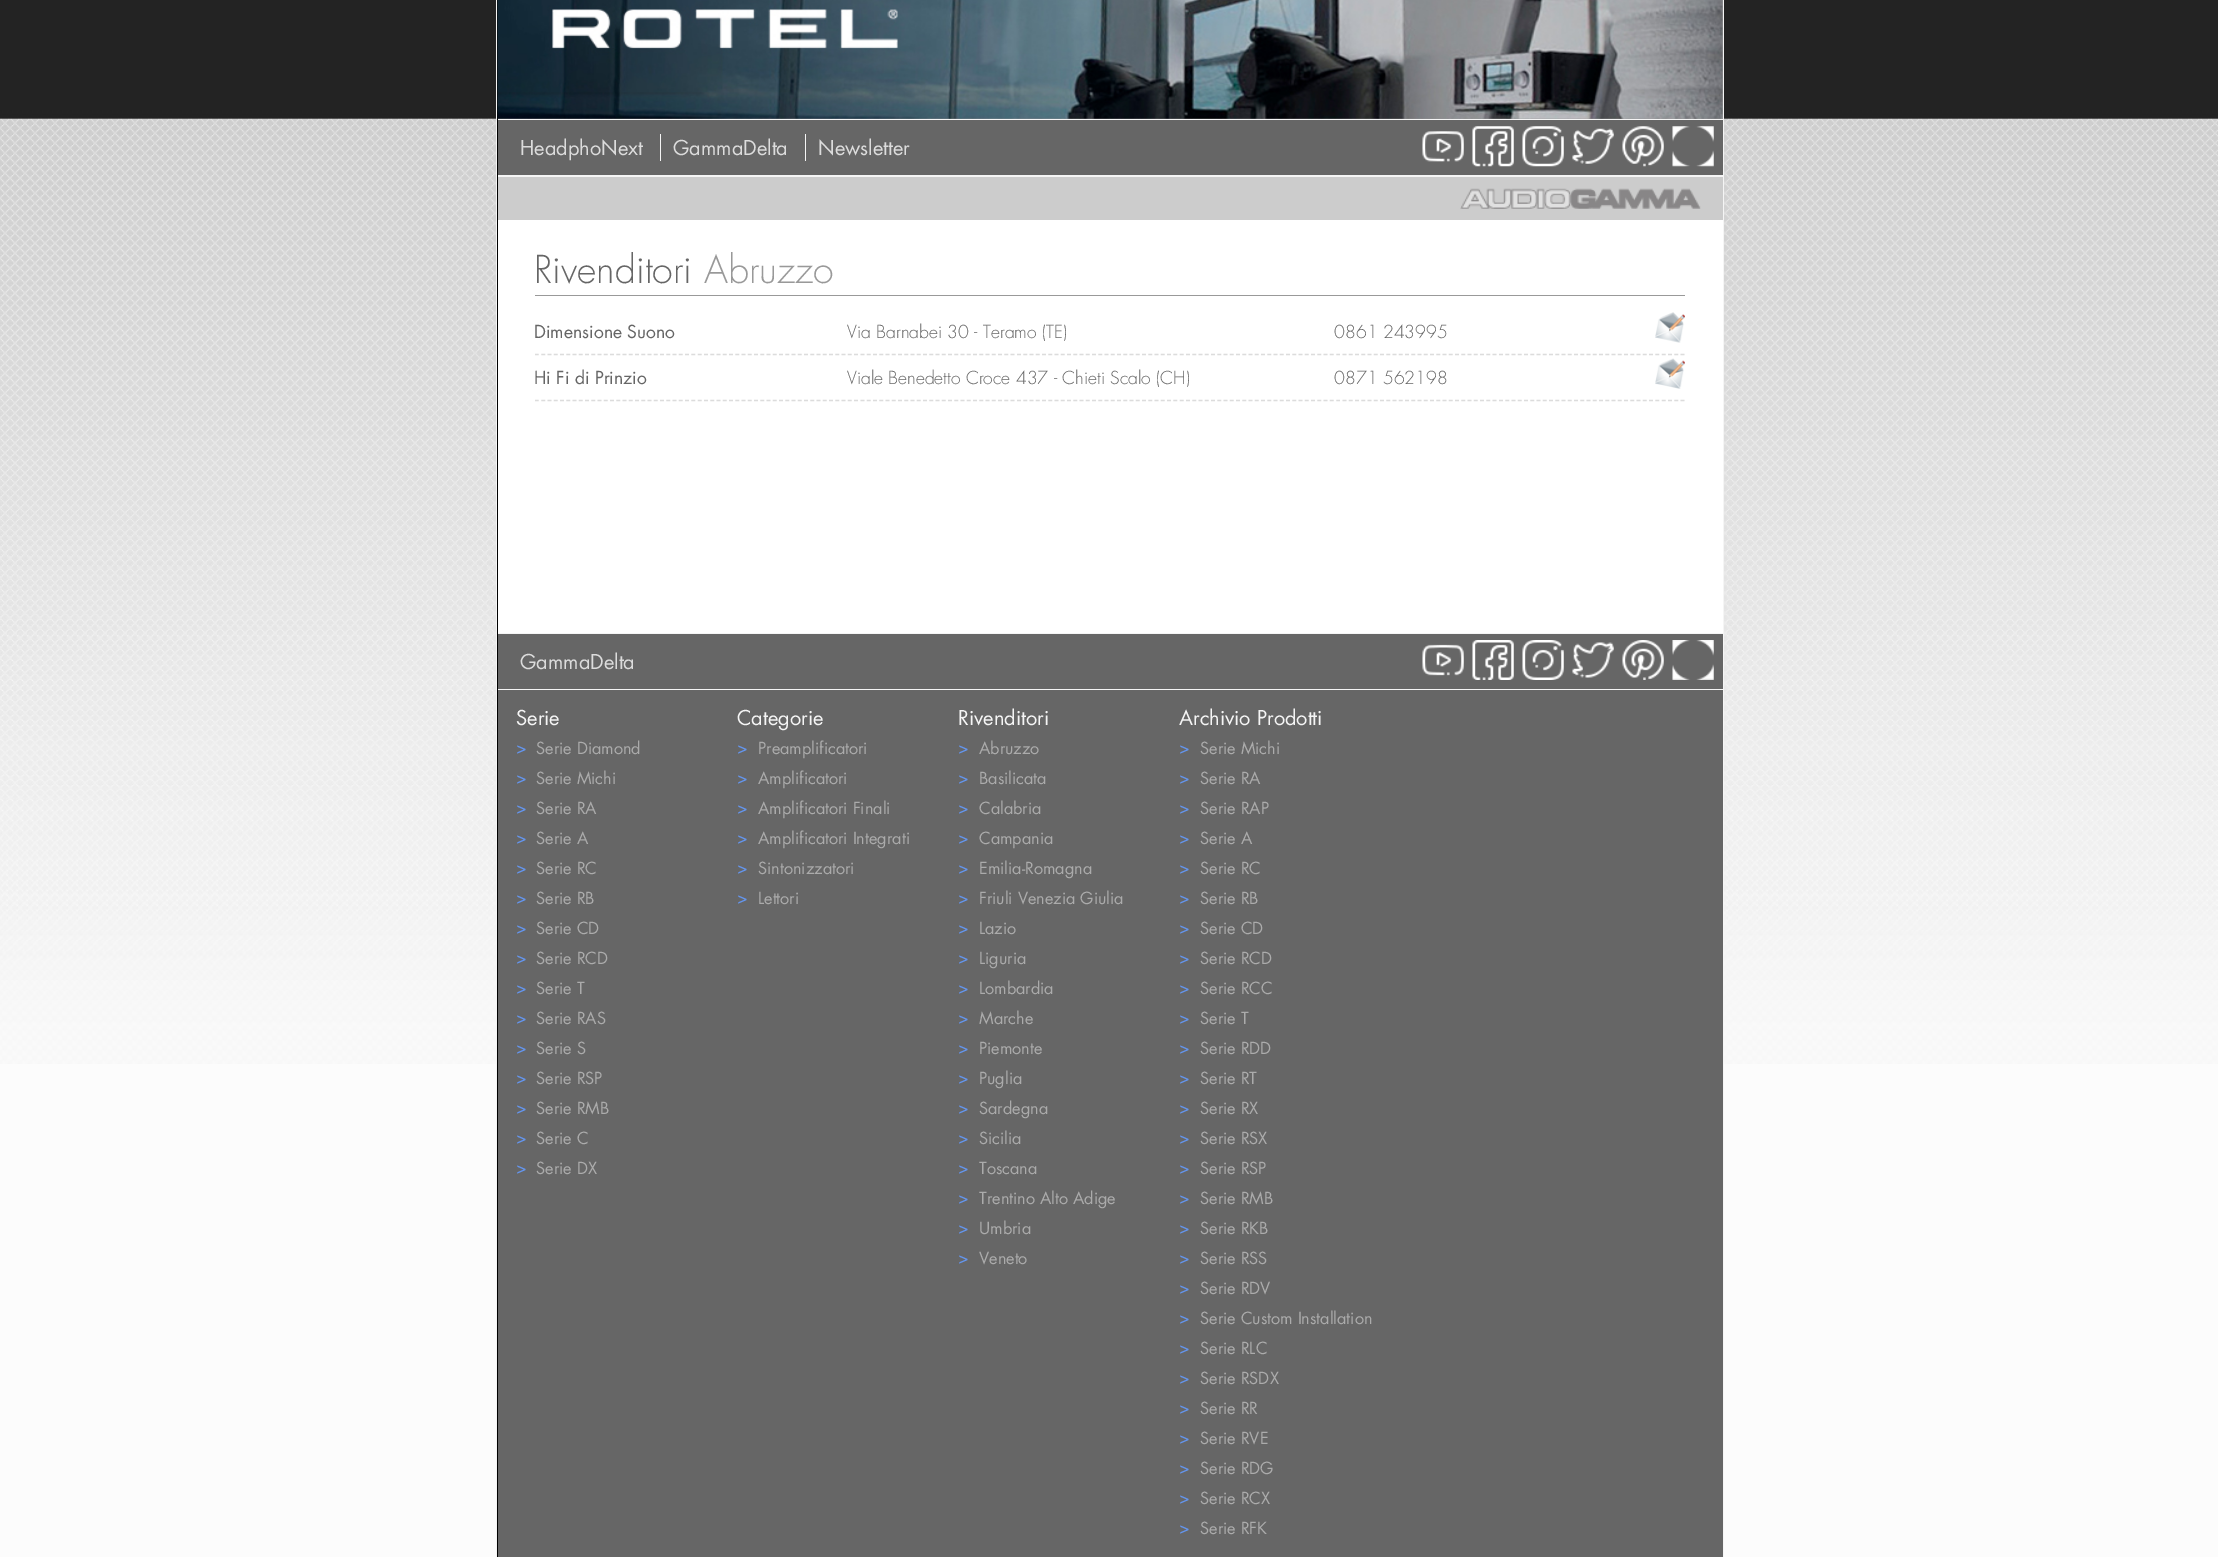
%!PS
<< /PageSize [2218 1557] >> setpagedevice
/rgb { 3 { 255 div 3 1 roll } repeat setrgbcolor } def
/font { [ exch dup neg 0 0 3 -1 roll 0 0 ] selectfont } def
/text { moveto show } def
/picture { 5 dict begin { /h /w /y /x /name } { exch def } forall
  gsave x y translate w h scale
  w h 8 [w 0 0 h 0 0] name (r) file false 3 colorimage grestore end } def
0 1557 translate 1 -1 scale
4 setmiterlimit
252 252 252 rgb
0 0 2218 1557 rectfill
(img_01.rgb) 0 0 2218 1064 picture
0 0 0 rgb
497 0 1 1557 rectfill
245 245 245 rgb
1723 0 1 1557 rectfill
496 0 1 1557 rectfill
153 153 153 rgb
498 0 1225 119 rectfill
(img_02.rgb) 497 0 1226 119 picture
102 102 102 rgb
498 120 1225 55 rectfill
245 245 245 rgb
498 119 1225 1 rectfill
498 175 1225 2 rectfill
660 134 1 27 rectfill
805 134 1 27 rectfill
(img_03.rgb) 1422 131 42 31 picture
(img_04.rgb) 1472 126 42 41 picture
(img_05.rgb) 1522 126 42 41 picture
(img_06.rgb) 1572 128 42 36 picture
(img_07.rgb) 1622 126 42 41 picture
(img_08.rgb) 1672 126 42 41 picture
204 204 204 rgb
498 177 1225 43 rectfill
(img_09.rgb) 1460 188 241 21 picture
255 255 255 rgb
498 220 1225 413 rectfill
153 153 153 rgb
535 295 1150 1 rectfill
220 220 220 rgb
1.2 setlinewidth
[3.75 2.51] 0 setdash
535 354.5 moveto 1150 0 rlineto stroke
(img_10.rgb) 1655 312 30 31 picture
535 400.5 moveto 1150 0 rlineto stroke
(img_11.rgb) 1655 358 30 31 picture
102 102 102 rgb
498 634 1225 55 rectfill
245 245 245 rgb
498 633 1225 1 rectfill
498 689 1225 1 rectfill
(img_12.rgb) 1422 644 42 32 picture
(img_13.rgb) 1472 640 42 40 picture
(img_14.rgb) 1522 640 42 40 picture
(img_15.rgb) 1572 642 42 36 picture
(img_16.rgb) 1622 640 42 40 picture
(img_17.rgb) 1672 640 42 40 picture
102 102 102 rgb
498 690 1225 867 rectfill
/Futura-Regular 20 font
220 220 220 rgb
(HeadphoNext) 520 155 text
(GammaDelta) 673 155 text
(Newsletter) 818 155 text
/Futura-Light 37.5 font
102 102 102 rgb
(Rivenditori) 534 283 text
153 153 153 rgb
(Abruzzo) 704 283 text
/Futura-Regular 17.5 font
102 102 102 rgb
(Dimensione Suono) 534 338 text
/Futura-Light 17.5 font
(Via Barnabei 30 - Teramo \(TE\)) 847 338 text
(0861 243995) 1334 338 text
/Futura-Regular 17.5 font
(Hi Fi di Prinzio) 534 384 text
/Futura-Light 17.5 font
(Viale Benedetto Croce 437 - Chieti Scalo \(CH\)) 847 384 text
(0871 562198) 1334 384 text
/Futura-Regular 20 font
220 220 220 rgb
(GammaDelta) 520 669 text
245 245 245 rgb
(Serie) 516 725 text
/Futura-Regular 17.5 font
100 149 237 rgb
(>) 516 754 text
/Futura-Regular 16.25 font
171 171 171 rgb
(Serie Diamond) 536 754 text
/Futura-Regular 17.5 font
100 149 237 rgb
(>) 516 784 text
/Futura-Regular 16.25 font
171 171 171 rgb
(Serie Michi) 536 784 text
/Futura-Regular 17.5 font
100 149 237 rgb
(>) 516 814 text
/Futura-Regular 16.25 font
171 171 171 rgb
(Serie RA) 536 814 text
/Futura-Regular 17.5 font
100 149 237 rgb
(>) 516 844 text
/Futura-Regular 16.25 font
171 171 171 rgb
(Serie A) 536 844 text
/Futura-Regular 17.5 font
100 149 237 rgb
(>) 516 874 text
/Futura-Regular 16.25 font
171 171 171 rgb
(Serie RC) 536 874 text
/Futura-Regular 17.5 font
100 149 237 rgb
(>) 516 904 text
/Futura-Regular 16.25 font
171 171 171 rgb
(Serie RB) 536 904 text
/Futura-Regular 17.5 font
100 149 237 rgb
(>) 516 934 text
/Futura-Regular 16.25 font
171 171 171 rgb
(Serie CD) 536 934 text
/Futura-Regular 17.5 font
100 149 237 rgb
(>) 516 964 text
/Futura-Regular 16.25 font
171 171 171 rgb
(Serie RCD) 536 964 text
/Futura-Regular 17.5 font
100 149 237 rgb
(>) 516 994 text
/Futura-Regular 16.25 font
171 171 171 rgb
(Serie T) 536 994 text
/Futura-Regular 17.5 font
100 149 237 rgb
(>) 516 1024 text
/Futura-Regular 16.25 font
171 171 171 rgb
(Serie RAS) 536 1024 text
/Futura-Regular 17.5 font
100 149 237 rgb
(>) 516 1054 text
/Futura-Regular 16.25 font
171 171 171 rgb
(Serie S) 536 1054 text
/Futura-Regular 17.5 font
100 149 237 rgb
(>) 516 1084 text
/Futura-Regular 16.25 font
171 171 171 rgb
(Serie RSP) 536 1084 text
/Futura-Regular 17.5 font
100 149 237 rgb
(>) 516 1114 text
/Futura-Regular 16.25 font
171 171 171 rgb
(Serie RMB) 536 1114 text
/Futura-Regular 17.5 font
100 149 237 rgb
(>) 516 1144 text
/Futura-Regular 16.25 font
171 171 171 rgb
(Serie C) 536 1144 text
/Futura-Regular 17.5 font
100 149 237 rgb
(>) 516 1174 text
/Futura-Regular 16.25 font
171 171 171 rgb
(Serie DX) 536 1174 text
/Futura-Regular 20 font
245 245 245 rgb
(Categorie) 737 725 text
/Futura-Regular 17.5 font
100 149 237 rgb
(>) 737 754 text
/Futura-Regular 16.25 font
171 171 171 rgb
(Preamplificatori) 758 754 text
/Futura-Regular 17.5 font
100 149 237 rgb
(>) 737 784 text
/Futura-Regular 16.25 font
171 171 171 rgb
(Amplificatori) 758 784 text
/Futura-Regular 17.5 font
100 149 237 rgb
(>) 737 814 text
/Futura-Regular 16.25 font
171 171 171 rgb
(Amplificatori Finali) 758 814 text
/Futura-Regular 17.5 font
100 149 237 rgb
(>) 737 844 text
/Futura-Regular 16.25 font
171 171 171 rgb
(Amplificatori Integrati) 758 844 text
/Futura-Regular 17.5 font
100 149 237 rgb
(>) 737 874 text
/Futura-Regular 16.25 font
171 171 171 rgb
(Sintonizzatori) 758 874 text
/Futura-Regular 17.5 font
100 149 237 rgb
(>) 737 904 text
/Futura-Regular 16.25 font
171 171 171 rgb
(Lettori) 758 904 text
/Futura-Regular 20 font
245 245 245 rgb
(Rivenditori) 958 725 text
/Futura-Regular 17.5 font
100 149 237 rgb
(>) 958 754 text
/Futura-Regular 16.25 font
171 171 171 rgb
(Abruzzo) 979 754 text
/Futura-Regular 17.5 font
100 149 237 rgb
(>) 958 784 text
/Futura-Regular 16.25 font
171 171 171 rgb
(Basilicata) 979 784 text
/Futura-Regular 17.5 font
100 149 237 rgb
(>) 958 814 text
/Futura-Regular 16.25 font
171 171 171 rgb
(Calabria) 979 814 text
/Futura-Regular 17.5 font
100 149 237 rgb
(>) 958 844 text
/Futura-Regular 16.25 font
171 171 171 rgb
(Campania) 979 844 text
/Futura-Regular 17.5 font
100 149 237 rgb
(>) 958 874 text
/Futura-Regular 16.25 font
171 171 171 rgb
(Emilia-Romagna) 979 874 text
/Futura-Regular 17.5 font
100 149 237 rgb
(>) 958 904 text
/Futura-Regular 16.25 font
171 171 171 rgb
(Friuli Venezia Giulia) 979 904 text
/Futura-Regular 17.5 font
100 149 237 rgb
(>) 958 934 text
/Futura-Regular 16.25 font
171 171 171 rgb
(Lazio) 979 934 text
/Futura-Regular 17.5 font
100 149 237 rgb
(>) 958 964 text
/Futura-Regular 16.25 font
171 171 171 rgb
(Liguria) 979 964 text
/Futura-Regular 17.5 font
100 149 237 rgb
(>) 958 994 text
/Futura-Regular 16.25 font
171 171 171 rgb
(Lombardia) 979 994 text
/Futura-Regular 17.5 font
100 149 237 rgb
(>) 958 1024 text
/Futura-Regular 16.25 font
171 171 171 rgb
(Marche) 979 1024 text
/Futura-Regular 17.5 font
100 149 237 rgb
(>) 958 1054 text
/Futura-Regular 16.25 font
171 171 171 rgb
(Piemonte) 979 1054 text
/Futura-Regular 17.5 font
100 149 237 rgb
(>) 958 1084 text
/Futura-Regular 16.25 font
171 171 171 rgb
(Puglia) 979 1084 text
/Futura-Regular 17.5 font
100 149 237 rgb
(>) 958 1114 text
/Futura-Regular 16.25 font
171 171 171 rgb
(Sardegna) 979 1114 text
/Futura-Regular 17.5 font
100 149 237 rgb
(>) 958 1144 text
/Futura-Regular 16.25 font
171 171 171 rgb
(Sicilia) 979 1144 text
/Futura-Regular 17.5 font
100 149 237 rgb
(>) 958 1174 text
/Futura-Regular 16.25 font
171 171 171 rgb
(Toscana) 979 1174 text
/Futura-Regular 17.5 font
100 149 237 rgb
(>) 958 1204 text
/Futura-Regular 16.25 font
171 171 171 rgb
(Trentino Alto Adige) 979 1204 text
/Futura-Regular 17.5 font
100 149 237 rgb
(>) 958 1234 text
/Futura-Regular 16.25 font
171 171 171 rgb
(Umbria) 979 1234 text
/Futura-Regular 17.5 font
100 149 237 rgb
(>) 958 1264 text
/Futura-Regular 16.25 font
171 171 171 rgb
(Veneto) 979 1264 text
/Futura-Regular 20 font
245 245 245 rgb
(Archivio Prodotti) 1179 725 text
/Futura-Regular 17.5 font
100 149 237 rgb
(>) 1179 754 text
/Futura-Regular 16.25 font
171 171 171 rgb
(Serie Michi) 1200 754 text
/Futura-Regular 17.5 font
100 149 237 rgb
(>) 1179 784 text
/Futura-Regular 16.25 font
171 171 171 rgb
(Serie RA) 1200 784 text
/Futura-Regular 17.5 font
100 149 237 rgb
(>) 1179 814 text
/Futura-Regular 16.25 font
171 171 171 rgb
(Serie RAP) 1200 814 text
/Futura-Regular 17.5 font
100 149 237 rgb
(>) 1179 844 text
/Futura-Regular 16.25 font
171 171 171 rgb
(Serie A) 1200 844 text
/Futura-Regular 17.5 font
100 149 237 rgb
(>) 1179 874 text
/Futura-Regular 16.25 font
171 171 171 rgb
(Serie RC) 1200 874 text
/Futura-Regular 17.5 font
100 149 237 rgb
(>) 1179 904 text
/Futura-Regular 16.25 font
171 171 171 rgb
(Serie RB) 1200 904 text
/Futura-Regular 17.5 font
100 149 237 rgb
(>) 1179 934 text
/Futura-Regular 16.25 font
171 171 171 rgb
(Serie CD) 1200 934 text
/Futura-Regular 17.5 font
100 149 237 rgb
(>) 1179 964 text
/Futura-Regular 16.25 font
171 171 171 rgb
(Serie RCD) 1200 964 text
/Futura-Regular 17.5 font
100 149 237 rgb
(>) 1179 994 text
/Futura-Regular 16.25 font
171 171 171 rgb
(Serie RCC) 1200 994 text
/Futura-Regular 17.5 font
100 149 237 rgb
(>) 1179 1024 text
/Futura-Regular 16.25 font
171 171 171 rgb
(Serie T) 1200 1024 text
/Futura-Regular 17.5 font
100 149 237 rgb
(>) 1179 1054 text
/Futura-Regular 16.25 font
171 171 171 rgb
(Serie RDD) 1200 1054 text
/Futura-Regular 17.5 font
100 149 237 rgb
(>) 1179 1084 text
/Futura-Regular 16.25 font
171 171 171 rgb
(Serie RT) 1200 1084 text
/Futura-Regular 17.5 font
100 149 237 rgb
(>) 1179 1114 text
/Futura-Regular 16.25 font
171 171 171 rgb
(Serie RX) 1200 1114 text
/Futura-Regular 17.5 font
100 149 237 rgb
(>) 1179 1144 text
/Futura-Regular 16.25 font
171 171 171 rgb
(Serie RSX) 1200 1144 text
/Futura-Regular 17.5 font
100 149 237 rgb
(>) 1179 1174 text
/Futura-Regular 16.25 font
171 171 171 rgb
(Serie RSP) 1200 1174 text
/Futura-Regular 17.5 font
100 149 237 rgb
(>) 1179 1204 text
/Futura-Regular 16.25 font
171 171 171 rgb
(Serie RMB) 1200 1204 text
/Futura-Regular 17.5 font
100 149 237 rgb
(>) 1179 1234 text
/Futura-Regular 16.25 font
171 171 171 rgb
(Serie RKB) 1200 1234 text
/Futura-Regular 17.5 font
100 149 237 rgb
(>) 1179 1264 text
/Futura-Regular 16.25 font
171 171 171 rgb
(Serie RSS) 1200 1264 text
/Futura-Regular 17.5 font
100 149 237 rgb
(>) 1179 1294 text
/Futura-Regular 16.25 font
171 171 171 rgb
(Serie RDV) 1200 1294 text
/Futura-Regular 17.5 font
100 149 237 rgb
(>) 1179 1324 text
/Futura-Regular 16.25 font
171 171 171 rgb
(Serie Custom Installation) 1200 1324 text
/Futura-Regular 17.5 font
100 149 237 rgb
(>) 1179 1354 text
/Futura-Regular 16.25 font
171 171 171 rgb
(Serie RLC) 1200 1354 text
/Futura-Regular 17.5 font
100 149 237 rgb
(>) 1179 1384 text
/Futura-Regular 16.25 font
171 171 171 rgb
(Serie RSDX) 1200 1384 text
/Futura-Regular 17.5 font
100 149 237 rgb
(>) 1179 1414 text
/Futura-Regular 16.25 font
171 171 171 rgb
(Serie RR) 1200 1414 text
/Futura-Regular 17.5 font
100 149 237 rgb
(>) 1179 1444 text
/Futura-Regular 16.25 font
171 171 171 rgb
(Serie RVE) 1200 1444 text
/Futura-Regular 17.5 font
100 149 237 rgb
(>) 1179 1474 text
/Futura-Regular 16.25 font
171 171 171 rgb
(Serie RDG) 1200 1474 text
/Futura-Regular 17.5 font
100 149 237 rgb
(>) 1179 1504 text
/Futura-Regular 16.25 font
171 171 171 rgb
(Serie RCX) 1200 1504 text
/Futura-Regular 17.5 font
100 149 237 rgb
(>) 1179 1534 text
/Futura-Regular 16.25 font
171 171 171 rgb
(Serie RFK) 1200 1534 text
showpage
